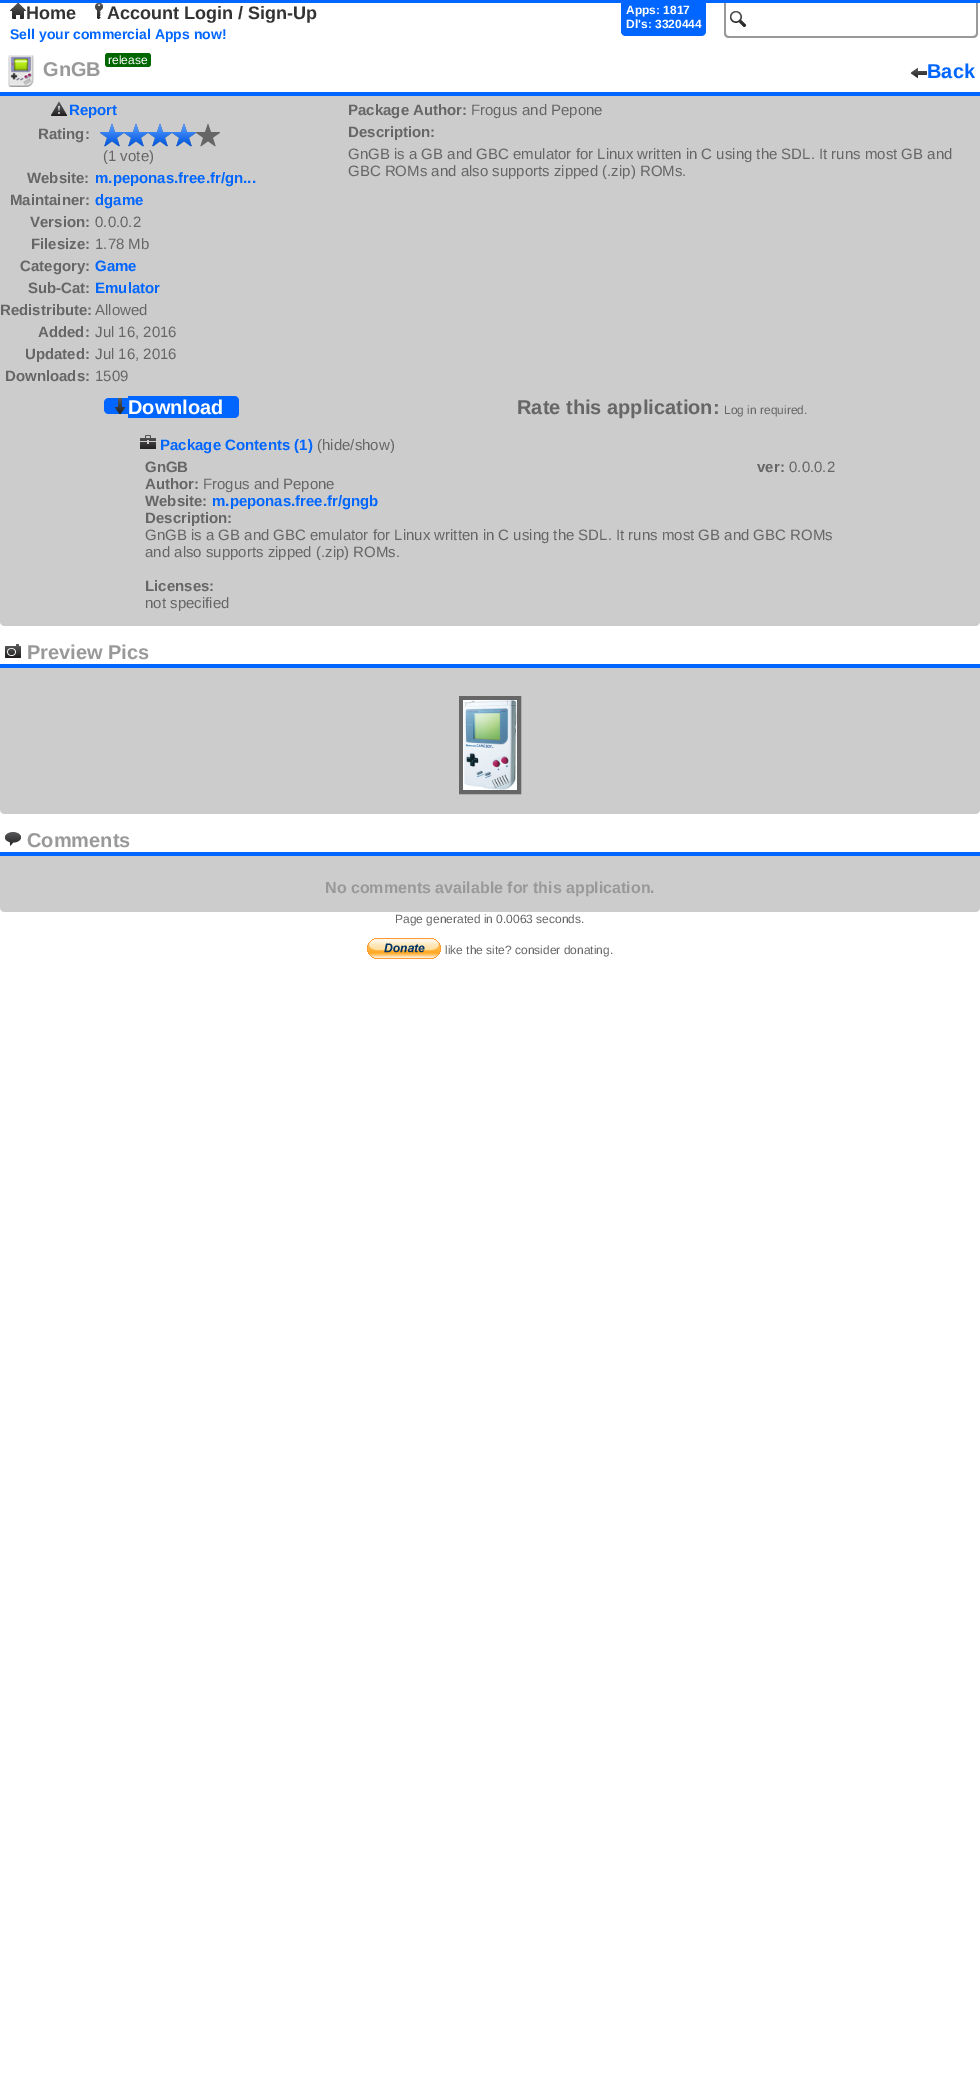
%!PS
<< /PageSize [980 2090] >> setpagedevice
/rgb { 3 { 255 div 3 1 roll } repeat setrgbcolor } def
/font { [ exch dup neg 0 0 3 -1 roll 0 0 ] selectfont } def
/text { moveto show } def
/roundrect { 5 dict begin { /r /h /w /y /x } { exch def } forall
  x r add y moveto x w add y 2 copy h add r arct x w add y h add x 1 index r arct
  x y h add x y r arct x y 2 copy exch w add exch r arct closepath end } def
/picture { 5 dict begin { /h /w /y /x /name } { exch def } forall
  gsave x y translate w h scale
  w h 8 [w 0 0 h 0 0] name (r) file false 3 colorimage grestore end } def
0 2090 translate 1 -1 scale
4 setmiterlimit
255 255 255 rgb
0 0 980 2090 rectfill
(img_03.rgb) 730 11 16 16 picture
153 153 153 rgb
724 1 moveto 254 0 rlineto 0 32 rlineto 0 3 -2 5 -5 5 rcurveto -244 0 rlineto -3 0 -5 -2 -5 -5 rcurveto closepath 726 1 moveto 250 0 rlineto 0 32 rlineto 0 2 -1 3 -3 3 rcurveto -244 0 rlineto -2 0 -3 -1 -3 -3 rcurveto closepath eofill
0 102 255 rgb
0 0 980 3 rectfill
(img_01.rgb) 10 3 16 16 picture
(img_02.rgb) 95 3 8 16 picture
621 3 moveto 85 0 rlineto 0 28 rlineto 0 3 -2 5 -5 5 rcurveto -75 0 rlineto -3 0 -5 -2 -5 -5 rcurveto closepath fill
204 204 204 rgb
0 60 moveto 980 0 rlineto 0 561 rlineto 0 3 -2 5 -5 5 rcurveto -970 0 rlineto -3 0 -5 -2 -5 -5 rcurveto closepath fill
255 255 255 rgb
0 60 980 32 rectfill
0 102 255 rgb
0 92 980 4 rectfill
(img_04.rgb) 8 55 26 32 picture
0 102 0 rgb
105 53 46 14 3 roundrect fill
(img_05.rgb) 911 68 16 10 picture
(img_06.rgb) 51 102 16 14 picture
(img_07.rgb) 100 123 120 24 picture
(img_08.rgb) 100 123 96 24 picture
0 102 255 rgb
109 398 moveto 19 0 rlineto 0 16 rlineto -19 0 rlineto -3 0 -5 -2 -5 -5 rcurveto 0 -6 rlineto 0 -3 2 -5 5 -5 rcurveto closepath fill
(img_09.rgb) 115 398 10 16 picture
128 396 moveto 106 0 rlineto 3 0 5 2 5 5 rcurveto 0 12 rlineto 0 3 -2 5 -5 5 rcurveto -106 0 rlineto closepath fill
(img_10.rgb) 140 435 16 14 picture
204 204 204 rgb
0 631 moveto 980 0 rlineto 0 178 rlineto 0 3 -2 5 -5 5 rcurveto -970 0 rlineto -3 0 -5 -2 -5 -5 rcurveto closepath fill
255 255 255 rgb
0 631 980 33 rectfill
0 102 255 rgb
0 664 980 4 rectfill
(img_11.rgb) 5 644 16 14 picture
102 102 102 rgb
4 setlinewidth
461 698 58 94 rectstroke
(img_12.rgb) 463 700 54 90 picture
204 204 204 rgb
0 819 moveto 980 0 rlineto 0 88 rlineto 0 3 -2 5 -5 5 rcurveto -970 0 rlineto -3 0 -5 -2 -5 -5 rcurveto closepath fill
255 255 255 rgb
0 819 980 33 rectfill
0 102 255 rgb
0 852 980 4 rectfill
(img_13.rgb) 5 832 16 14 picture
(img_14.rgb) 367 938 74 21 picture
/LiberationSans-Bold 18 font
51 51 51 rgb
(Home) 26 19 text
(Account Login / Sign-Up) 107 19 text
/LiberationSans-Bold 12 font
255 255 255 rgb
(Apps: 1817) 626 14 text
(Dl's: 3320444) 626 28 text
/LiberationSans-Bold 14 font
0 102 255 rgb
(Sell your commercial Apps now!) 10 39 text
/LiberationSans-Regular 12 font
255 255 255 rgb
(release) 108 64 text
/LiberationSans-Bold 20 font
153 153 153 rgb
(GnGB) 43 76 text
0 102 255 rgb
(Back) 927 78 text
/LiberationSans-Bold 15 font
(Report) 69 115 text
102 102 102 rgb
(Rating:) 38 139 text
/LiberationSans-Regular 15 font
(\(1 vote\)) 103 161 text
/LiberationSans-Bold 15 font
(Website:) 27 183 text
0 102 255 rgb
(m.peponas.free.fr/gn...) 95 183 text
102 102 102 rgb
(Maintainer:) 10 205 text
0 102 255 rgb
(dgame) 95 205 text
102 102 102 rgb
(Version:) 30 227 text
/LiberationSans-Regular 15 font
(0.0.0.2) 95 227 text
/LiberationSans-Bold 15 font
(Filesize:) 31 249 text
/LiberationSans-Regular 15 font
(1.78 Mb) 95 249 text
/LiberationSans-Bold 15 font
(Category:) 20 271 text
0 102 255 rgb
(Game) 95 271 text
102 102 102 rgb
(Sub-Cat:) 28 293 text
0 102 255 rgb
(Emulator) 95 293 text
102 102 102 rgb
(Redistribute:) 0 315 text
/LiberationSans-Regular 15 font
(Allowed) 95 315 text
/LiberationSans-Bold 15 font
(Added:) 38 337 text
/LiberationSans-Regular 15 font
(Jul 16, 2016) 95 337 text
/LiberationSans-Bold 15 font
(Updated:) 25 359 text
/LiberationSans-Regular 15 font
(Jul 16, 2016) 95 359 text
/LiberationSans-Bold 15 font
(Downloads:) 5 381 text
/LiberationSans-Regular 15 font
(1509) 95 381 text
/LiberationSans-Bold 15 font
(Package Author:) 348 115 text
/LiberationSans-Regular 15 font
(Frogus and Pepone) 471 115 text
/LiberationSans-Bold 15 font
(Description:) 348 137 text
/LiberationSans-Regular 15 font
(GnGB is a GB and GBC emulator for Linux written in C using the SDL. It runs most GB and) 348 159 text
(GBC ROMs and also supports zipped \(.zip\) ROMs.) 348 176 text
/LiberationSans-Bold 20 font
255 255 255 rgb
(Download) 128 414 text
102 102 102 rgb
(Rate this application:) 517 414 text
/LiberationSans-Regular 12 font
(Log in required.) 724 414 text
/LiberationSans-Bold 15 font
0 102 255 rgb
(Package Contents \(1\)) 160 450 text
/LiberationSans-Regular 15 font
102 102 102 rgb
(\(hide/show\)) 317 450 text
/LiberationSans-Bold 15 font
(GnGB) 145 472 text
(ver:) 757 472 text
/LiberationSans-Regular 15 font
(0.0.0.2) 789 472 text
/LiberationSans-Bold 15 font
(Author:) 145 489 text
/LiberationSans-Regular 15 font
(Frogus and Pepone) 203 489 text
/LiberationSans-Bold 15 font
(Website:) 145 506 text
0 102 255 rgb
(m.peponas.free.fr/gngb) 212 506 text
102 102 102 rgb
(Description:) 145 523 text
/LiberationSans-Regular 15 font
(GnGB is a GB and GBC emulator for Linux written in C using the SDL. It runs most GB and GBC ROMs) 145 540 text
(and also supports zipped \(.zip\) ROMs.) 145 557 text
/LiberationSans-Bold 15 font
(Licenses:) 145 591 text
/LiberationSans-Regular 15 font
(not specified) 145 608 text
/LiberationSans-Bold 20 font
153 153 153 rgb
(Preview Pics) 27 659 text
(Comments) 27 847 text
/LiberationSans-Bold 16 font
(No comments available for this application.) 325 893 text
/LiberationSans-Regular 12 font
102 102 102 rgb
(Page generated in 0.0063 seconds.) 395 923 text
(like the site? consider donating.) 445 954 text
showpage
